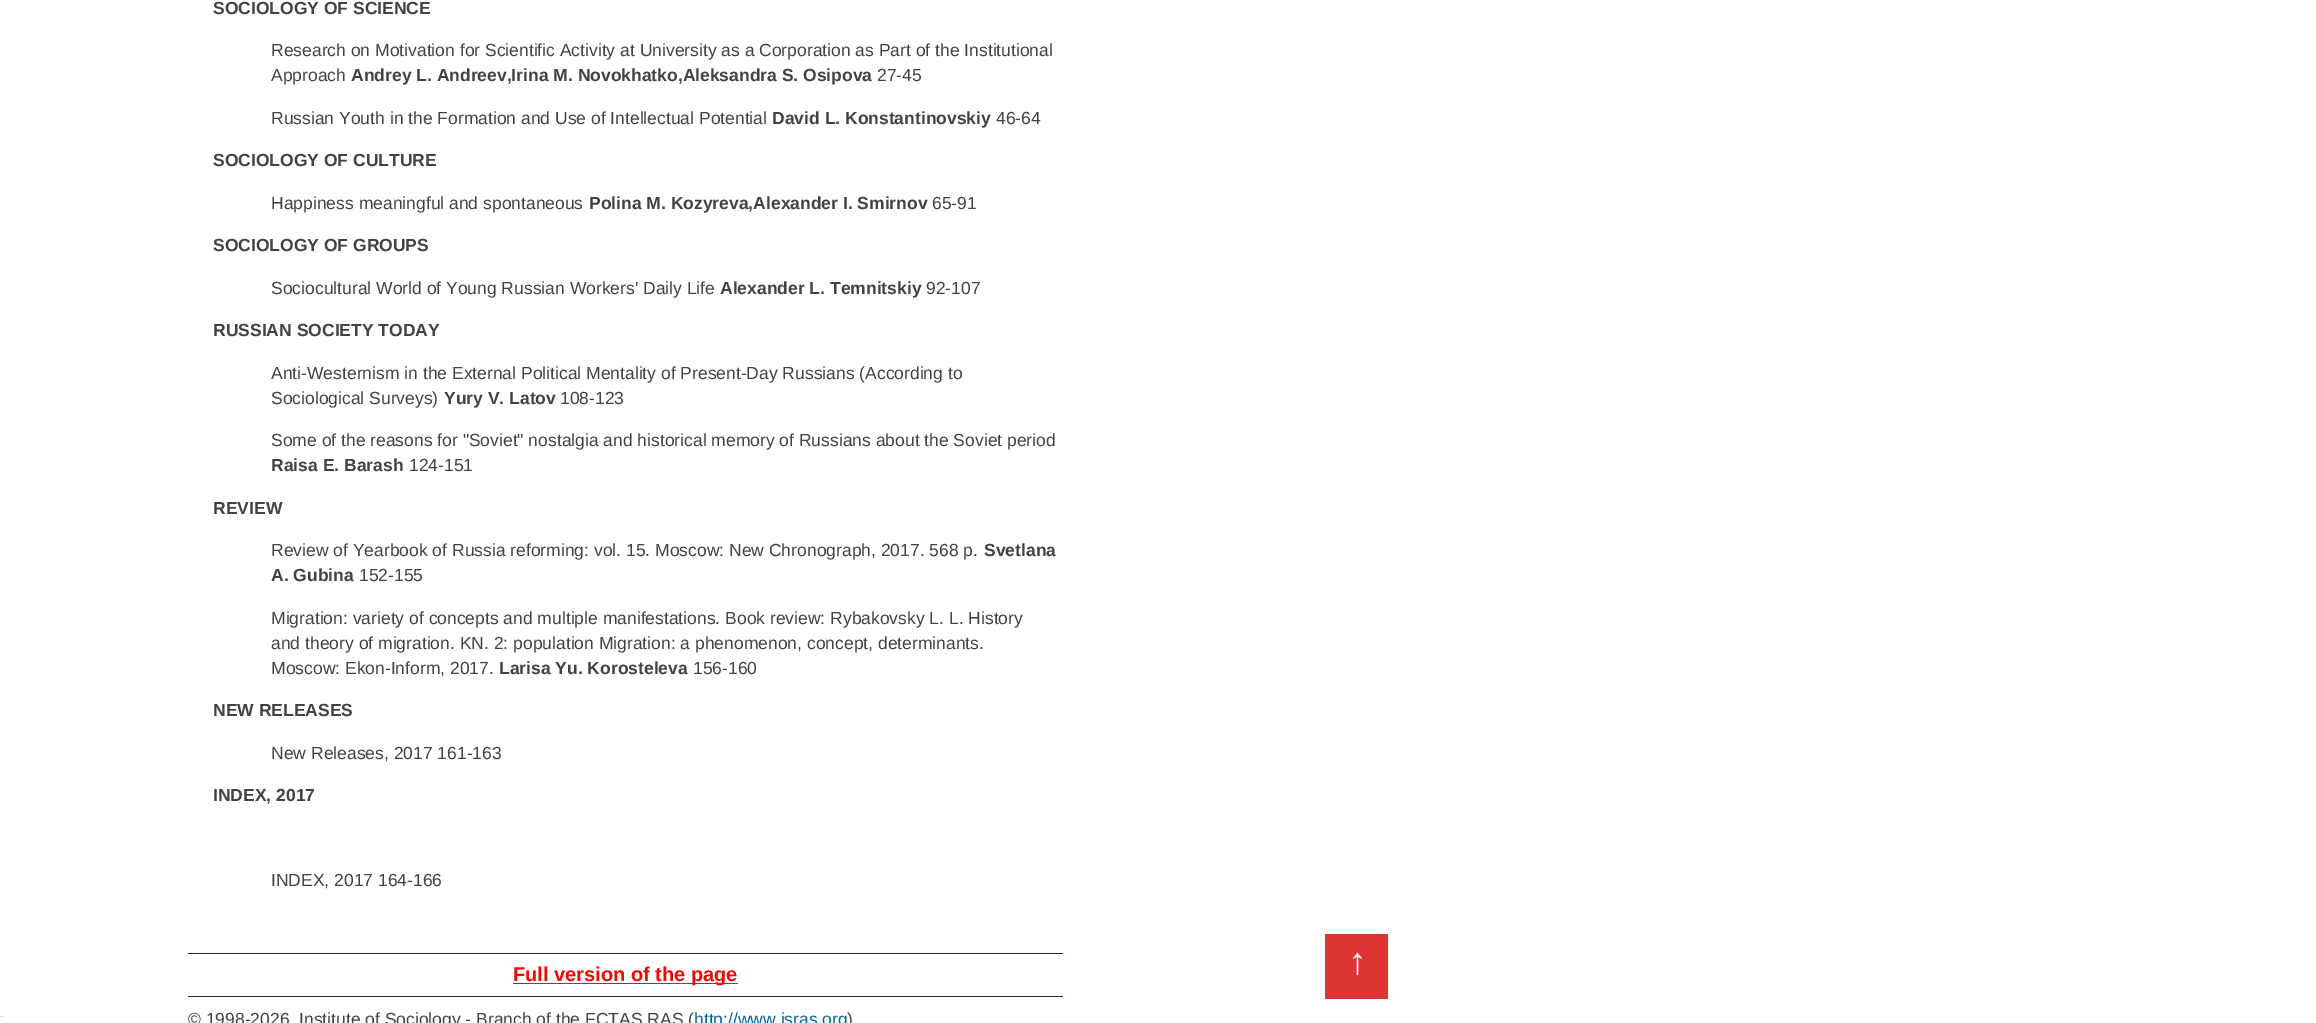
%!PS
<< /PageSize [2316 1023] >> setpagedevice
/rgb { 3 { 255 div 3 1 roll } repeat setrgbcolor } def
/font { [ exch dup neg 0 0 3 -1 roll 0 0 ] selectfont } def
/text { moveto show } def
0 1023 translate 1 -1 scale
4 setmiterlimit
255 255 255 rgb
0 0 2316 1023 rectfill
22 45 87 rgb
188 953 875 1 rectfill
0 103 161 rgb
513 983 225 1 rectfill
22 45 87 rgb
188 996 875 1 rectfill
221 52 52 rgb
1325 934 63 65 rectfill
204 225 236 rgb
0 1016 4 1 rectfill
/LiberationSans-Bold 17.5 font
66 66 66 rgb
(SOCIOLOGY OF SCIENCE) 213 14 text
/LiberationSans-Regular 17.5 font
(Research on Motivation for Scientific Activity at University as a Corporation as Part of the Institutional) 271 56 text
(Approach) 271 81 text
/LiberationSans-Bold 17.5 font
(Andrey L. Andreev,Irina M. Novokhatko,Aleksandra S. Osipova) 351 81 text
/LiberationSans-Regular 17.5 font
(27-45) 877 81 text
(Russian Youth in the Formation and Use of Intellectual Potential) 271 124 text
/LiberationSans-Bold 17.5 font
(David L. Konstantinovskiy) 772 124 text
/LiberationSans-Regular 17.5 font
(46-64) 996 124 text
/LiberationSans-Bold 17.5 font
(SOCIOLOGY OF СULTURE) 213 166 text
/LiberationSans-Regular 17.5 font
(Happiness meaningful and spontaneous) 271 209 text
/LiberationSans-Bold 17.5 font
(Polina M. Kozyreva,Alexander I. Smirnov) 589 209 text
/LiberationSans-Regular 17.5 font
(65-91) 932 209 text
/LiberationSans-Bold 17.5 font
(SOCIOLOGY OF GROUPS) 213 251 text
/LiberationSans-Regular 17.5 font
(Sociocultural World of Young Russian Workers' Daily Life) 271 294 text
/LiberationSans-Bold 17.5 font
(Alexander L. Temnitskiy) 720 294 text
/LiberationSans-Regular 17.5 font
(92-107) 926 294 text
/LiberationSans-Bold 17.5 font
(RUSSIAN SOCIETY TODAY) 213 336 text
/LiberationSans-Regular 17.5 font
(Anti-Westernism in the External Political Mentality of Present-Day Russians \(According to) 271 379 text
(Sociological Surveys\)) 271 404 text
/LiberationSans-Bold 17.5 font
(Yury V. Latov) 444 404 text
/LiberationSans-Regular 17.5 font
(108-123) 560 404 text
(Some of the reasons for "Soviet" nostalgia and historical memory of Russians about the Soviet period) 271 446 text
/LiberationSans-Bold 17.5 font
(Raisa E. Barash) 271 471 text
/LiberationSans-Regular 17.5 font
(124-151) 409 471 text
/LiberationSans-Bold 17.5 font
(REVIEW) 213 514 text
/LiberationSans-Regular 17.5 font
(Review of Yearbook of Russia reforming: vol. 15. Moscow: New Chronograph, 2017. 568 p.) 271 556 text
/LiberationSans-Bold 17.5 font
(Svetlana) 984 556 text
(A. Gubina) 271 581 text
/LiberationSans-Regular 17.5 font
(152-155) 359 581 text
(Migration: variety of concepts and multiple manifestations. Book review: Rybakovsky L. L. History) 271 624 text
(and theory of migration. KN. 2: population Migration: a phenomenon, concept, determinants.) 271 649 text
(Moscow: Ekon-Inform, 2017.) 271 674 text
/LiberationSans-Bold 17.5 font
(Larisa Yu. Korosteleva) 499 674 text
/LiberationSans-Regular 17.5 font
(156-160) 693 674 text
/LiberationSans-Bold 17.5 font
(NEW RELEASES) 213 716 text
/LiberationSans-Regular 17.5 font
(New Releases, 2017 161-163) 271 759 text
/LiberationSans-Bold 17.5 font
(INDEX, 2017) 213 801 text
/LiberationSans-Regular 17.5 font
(INDEX, 2017 164-166) 271 886 text
/LiberationSans-Bold 20 font
255 0 0 rgb
(Full version of the page) 513 981 text
/LiberationSans-Regular 17.5 font
66 66 66 rgb
(© 1998-2026. Institute of Sociology - Branch of the FCTAS RAS \() 188 1025 text
0 103 161 rgb
(http://www.isras.org) 694 1025 text
66 66 66 rgb
(\)) 847 1025 text
/LiberationSans-Regular 38 font
255 255 255 rgb
(↑) 1348 974 text
showpage
